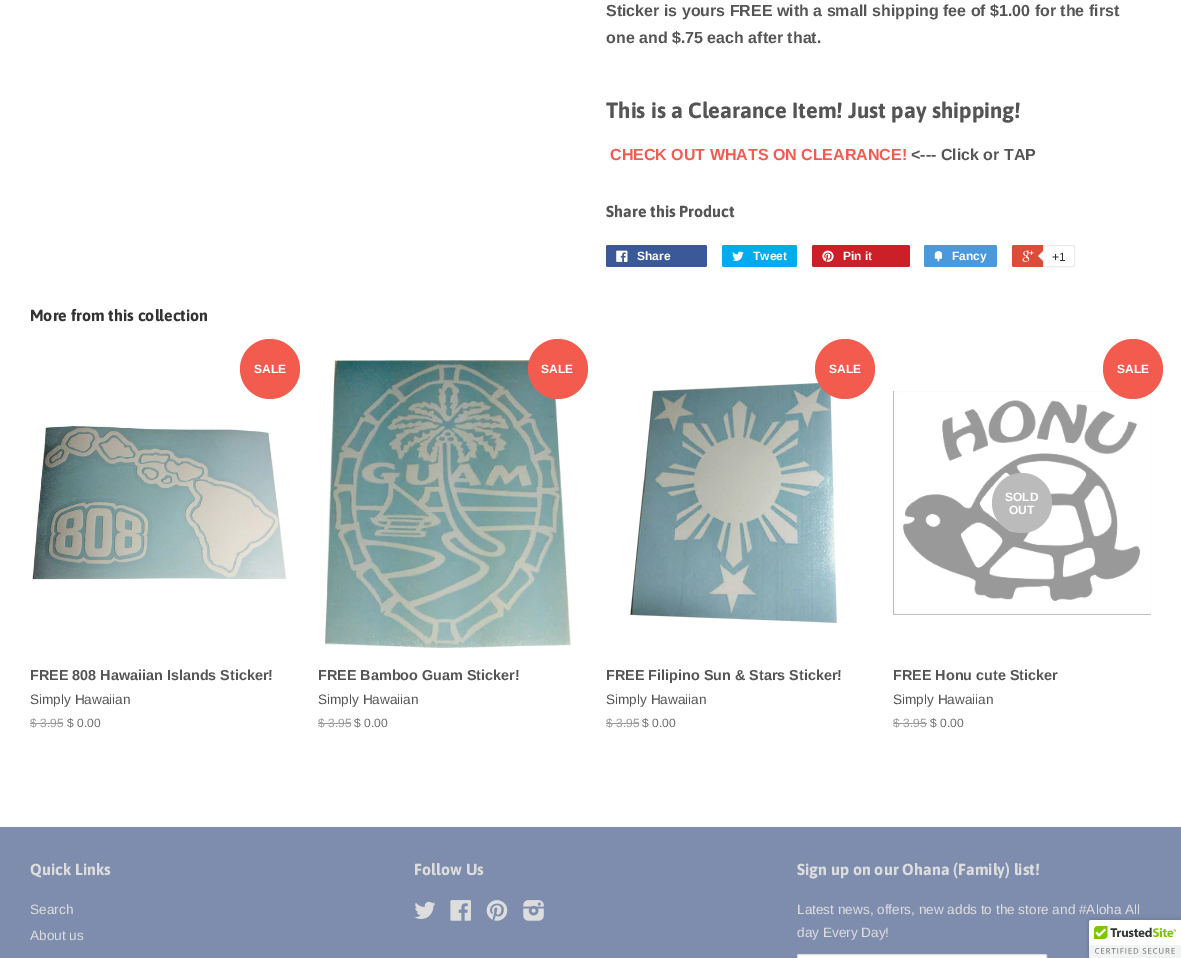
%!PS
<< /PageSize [1181 958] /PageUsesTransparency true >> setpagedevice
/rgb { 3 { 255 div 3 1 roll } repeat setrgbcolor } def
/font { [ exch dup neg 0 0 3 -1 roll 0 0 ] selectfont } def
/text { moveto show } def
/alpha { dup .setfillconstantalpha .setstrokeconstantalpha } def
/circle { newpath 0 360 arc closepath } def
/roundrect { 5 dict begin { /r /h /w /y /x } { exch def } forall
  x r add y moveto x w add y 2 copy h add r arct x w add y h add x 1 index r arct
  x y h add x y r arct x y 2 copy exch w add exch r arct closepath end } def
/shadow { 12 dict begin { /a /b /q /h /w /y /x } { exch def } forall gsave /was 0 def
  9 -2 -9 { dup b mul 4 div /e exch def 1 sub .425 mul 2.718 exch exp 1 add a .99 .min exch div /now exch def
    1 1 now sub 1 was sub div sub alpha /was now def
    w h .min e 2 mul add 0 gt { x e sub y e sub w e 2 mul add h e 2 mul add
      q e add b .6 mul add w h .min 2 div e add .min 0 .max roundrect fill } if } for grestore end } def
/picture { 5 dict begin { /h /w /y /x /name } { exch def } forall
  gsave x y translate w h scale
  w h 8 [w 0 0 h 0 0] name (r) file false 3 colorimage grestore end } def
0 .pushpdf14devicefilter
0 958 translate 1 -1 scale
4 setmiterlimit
255 255 255 rgb
0 0 1181 958 rectfill
59 89 152 rgb
606 245 101 22 2 roundrect fill
(img_01.rgb) 616 250 12 12 picture
0 172 237 rgb
722 245 75 22 2 roundrect fill
(img_02.rgb) 732 251 12 10 picture
203 32 39 rgb
812 245 98 22 2 roundrect fill
(img_03.rgb) 822 250 12 12 picture
73 153 220 rgb
924 245 73 22 2 roundrect fill
(img_04.rgb) 934 251 9 11 picture
221 75 57 rgb
1012 245 61 22 2 roundrect fill
(img_05.rgb) 1022 250 12 12 picture
255 255 255 rgb
1043.5 245.5 moveto 29.5 0 rlineto 1 0 1.5 0.5 1.5 1.5 rcurveto 0 18 rlineto 0 1 -0.5 1.5 -1.5 1.5 rcurveto -29.5 0 rlineto closepath gsave fill grestore
236 236 236 rgb
stroke
1044 250 moveto 0 12 rlineto -6 -6 rlineto closepath fill
255 255 255 rgb
1045 250 moveto 0 12 rlineto -6 -6 rlineto closepath fill
244 91 79 rgb
270 369 30 circle fill
(img_06.rgb) 32 424 255 157 picture
154 154 154 rgb
30 723 33 1 rectfill
(img_07.rgb) 325 360 246 288 picture
244 91 79 rgb
558 369 30 circle fill
154 154 154 rgb
318 723 33 1 rectfill
(img_08.rgb) 630 382 207 241 picture
244 91 79 rgb
845 369 30 circle fill
154 154 154 rgb
606 723 33 1 rectfill
(img_09.rgb) 893 391 258 224 picture
244 91 79 rgb
1133 369 30 circle fill
187 187 187 rgb
1022 503 30 circle fill
154 154 154 rgb
893 723 34 1 rectfill
126 141 174 rgb
0 827 1181 131 rectfill
(img_10.rgb) 414 901 22 18 picture
(img_11.rgb) 450 900 21 21 picture
(img_12.rgb) 486 900 22 21 picture
(img_13.rgb) 523 900 21 21 picture
255 255 255 rgb
797.5 954.5 249 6 1.5 roundrect gsave fill grestore
221 221 221 rgb
stroke
0 0 0 rgb
1089 920 92 38 2 2.5 0.2 shadow
255 255 255 rgb
1091 920 moveto 90 0 rlineto 0 38 rlineto -92 0 rlineto 0 -36 rlineto 0 -1 1 -2 2 -2 rcurveto closepath fill
(img_14.rgb) 1089 920 92 38 picture
/LiberationSans-Bold 16 font
85 85 85 rgb
(Sticker is yours FREE with a small shipping fee of $1.00 for the first) 606 16 text
(one and $.75 each after that.) 606 43 text
/Asap-Bold 22 font
(This is a Clearance Item! Just pay shipping!) 606 118 text
/LiberationSans-Bold 16 font
244 91 79 rgb
(CHECK OUT WHATS ON CLEARANCE!) 610 160 text
85 85 85 rgb
(<--- Click or TAP) 911 160 text
/Asap-Bold 16 font
(Share this Product) 606 217 text
/LiberationSans-Bold 12 font
255 255 255 rgb
(Share) 637 260 text
(Tweet) 753 260 text
(Pin it) 843 260 text
(Fancy) 952 260 text
/LiberationSans-Regular 12 font
51 51 51 rgb
(+1) 1052 261 text
/Asap-Bold 16 font
(More from this collection) 30 321 text
/LiberationSans-Bold 12 font
255 255 255 rgb
(SALE) 254 373 text
/LiberationSans-Bold 14.4 font
85 85 85 rgb
(FREE 808 Hawaiian Islands Sticker!) 30 680 text
/LiberationSans-Regular 13.6 font
(Simply Hawaiian) 30 704 text
/LiberationSans-Regular 12 font
154 154 154 rgb
($ 3.95) 30 727 text
110 110 110 rgb
($ 0.00) 67 727 text
/LiberationSans-Bold 12 font
255 255 255 rgb
(SALE) 541 373 text
/LiberationSans-Bold 14.4 font
85 85 85 rgb
(FREE Bamboo Guam Sticker!) 318 680 text
/LiberationSans-Regular 13.6 font
(Simply Hawaiian) 318 704 text
/LiberationSans-Regular 12 font
154 154 154 rgb
($ 3.95) 318 727 text
110 110 110 rgb
($ 0.00) 354 727 text
/LiberationSans-Bold 12 font
255 255 255 rgb
(SALE) 829 373 text
/LiberationSans-Bold 14.4 font
85 85 85 rgb
(FREE Filipino Sun & Stars Sticker!) 606 680 text
/LiberationSans-Regular 13.6 font
(Simply Hawaiian) 606 704 text
/LiberationSans-Regular 12 font
154 154 154 rgb
($ 3.95) 606 727 text
110 110 110 rgb
($ 0.00) 642 727 text
/LiberationSans-Bold 12 font
255 255 255 rgb
(SALE) 1117 373 text
(SOLD) 1005 501 text
(OUT) 1009 514 text
/LiberationSans-Bold 14.4 font
85 85 85 rgb
(FREE Honu cute Sticker) 893 680 text
/LiberationSans-Regular 13.6 font
(Simply Hawaiian) 893 704 text
/LiberationSans-Regular 12 font
154 154 154 rgb
($ 3.95) 893 727 text
110 110 110 rgb
($ 0.00) 930 727 text
/Asap-Bold 16 font
221 221 221 rgb
(Quick Links) 30 875 text
/LiberationSans-Regular 13.6 font
(Search) 30 914 text
(About us) 30 940 text
/Asap-Bold 16 font
(Follow Us) 414 875 text
(Sign up on our Ohana \(Family\) list!) 797 875 text
/LiberationSans-Regular 13.6 font
(Latest news, offers, new adds to the store and #Aloha All) 797 914 text
(day Every Day!) 797 937 text
.poppdf14devicefilter showpage
